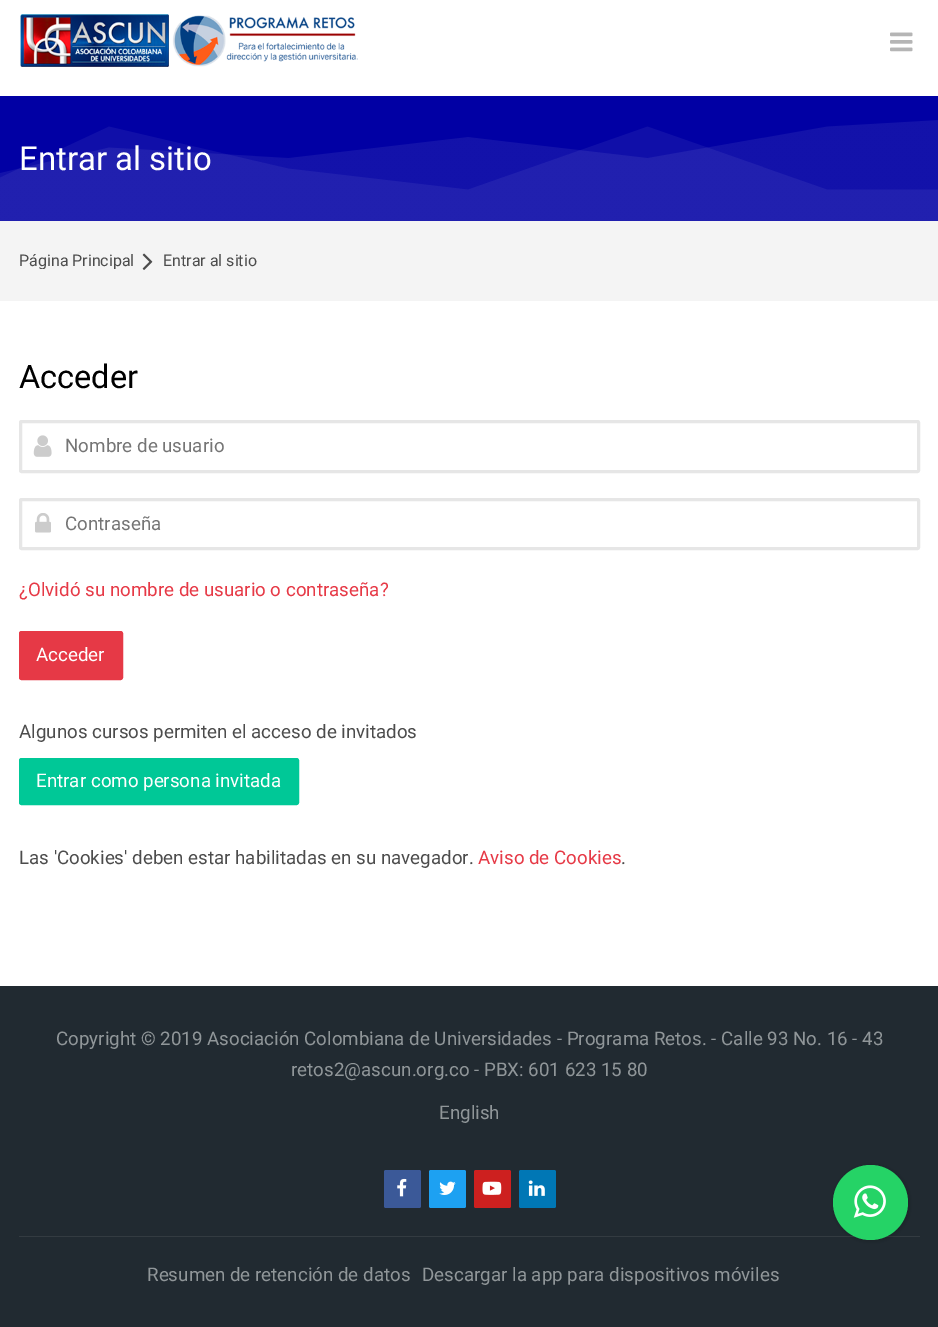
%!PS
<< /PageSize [938 1327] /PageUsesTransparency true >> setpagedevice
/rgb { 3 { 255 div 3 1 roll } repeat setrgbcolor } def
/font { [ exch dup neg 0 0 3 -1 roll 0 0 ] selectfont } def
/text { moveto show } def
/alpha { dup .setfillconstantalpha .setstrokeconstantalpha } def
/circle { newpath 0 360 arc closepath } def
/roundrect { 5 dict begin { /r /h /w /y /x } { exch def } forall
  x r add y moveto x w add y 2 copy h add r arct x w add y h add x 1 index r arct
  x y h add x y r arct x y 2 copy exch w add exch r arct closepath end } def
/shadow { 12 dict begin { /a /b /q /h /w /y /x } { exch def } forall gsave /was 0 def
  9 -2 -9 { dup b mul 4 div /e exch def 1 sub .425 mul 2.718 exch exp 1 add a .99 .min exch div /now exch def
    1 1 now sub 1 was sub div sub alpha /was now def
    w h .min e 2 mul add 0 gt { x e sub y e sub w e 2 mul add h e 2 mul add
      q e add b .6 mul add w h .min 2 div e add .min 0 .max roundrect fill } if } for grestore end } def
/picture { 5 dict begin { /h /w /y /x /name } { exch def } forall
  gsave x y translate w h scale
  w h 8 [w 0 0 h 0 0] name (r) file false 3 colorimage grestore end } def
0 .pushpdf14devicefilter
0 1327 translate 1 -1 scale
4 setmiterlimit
255 255 255 rgb
0 0 938 1327 rectfill
(img_01.rgb) 20 14 338 53 picture
(img_02.rgb) 890 32 23 20 picture
1 0 164 rgb
0 96 938 125 rectfill
(img_03.rgb) 0 120 938 101 picture
244 244 244 rgb
0 221 938 80 rectfill
(img_04.rgb) 142 253 11 17 picture
230 230 230 rgb
3 setlinewidth
20.5 421.5 898 50 1 roundrect stroke
(img_05.rgb) 33 435 19 22 picture
20.5 499.5 898 49 1 roundrect stroke
(img_06.rgb) 35 513 16 20 picture
230 57 70 rgb
20.5 632.5 101 46 1 roundrect gsave fill grestore
stroke
0 200 151 rgb
20.5 759.5 277 44 1 roundrect gsave fill grestore
stroke
33 42 49 rgb
0 986 938 341 rectfill
59 89 152 rgb
384 1170 37 38 2 roundrect fill
(img_07.rgb) 397 1178 10 19 picture
29 161 242 rgb
429 1170 37 38 2 roundrect fill
(img_08.rgb) 439 1181 17 14 picture
205 32 31 rgb
474 1170 37 38 2 roundrect fill
(img_09.rgb) 482 1181 20 14 picture
0 119 181 rgb
519 1170 37 38 2 roundrect fill
(img_10.rgb) 528 1180 17 16 picture
51 59 65 rgb
19 1236 901 1 rectfill
0 0 0 rgb
834 1166 75 75 37.5 3 0.2 shadow
37 211 102 rgb
870.5 1202.5 37.5 circle fill
(img_11.rgb) 853 1185 33 33 picture
/Roboto-Regular 33 font
255 255 255 rgb
(Entrar al sitio) 19 170 text
gsave
19 253 115 16 rectclip
/Roboto-Regular 16 font
76 76 76 rgb
(Página Principal) 19 266 text
grestore
/Roboto-Regular 16 font
76 76 76 rgb
(Entrar al sitio) 163 266 text
/Roboto-Regular 32.5 font
0 0 0 rgb
(Acceder) 19 388 text
/Roboto-Regular 18.75 font
117 117 117 rgb
(Nombre de usuario) 65 452 text
(Contraseña) 65 530 text
230 57 70 rgb
(¿Olvidó su nombre de usuario o contraseña?) 19 596 text
255 255 255 rgb
(Acceder) 36 661 text
76 76 76 rgb
(Algunos cursos permiten el acceso de invitados) 19 738 text
255 255 255 rgb
(Entrar como persona invitada) 36 787 text
76 76 76 rgb
(Las 'Cookies' deben estar habilitadas en su navegador.) 19 864 text
230 57 70 rgb
(Aviso de Cookies) 478 864 text
76 76 76 rgb
(.) 621 864 text
144 150 153 rgb
(Copyright © 2019 Asociación Colombiana de Universidades - Programa Retos. - Calle 93 No. 16 - 43) 56 1045 text
(retos2@ascun.org.co - PBX: 601 623 15 80) 291 1076 text
(English) 439 1119 text
(Resumen de retención de datos) 147 1281 text
(Descargar la app para dispositivos móviles) 422 1281 text
.poppdf14devicefilter showpage
